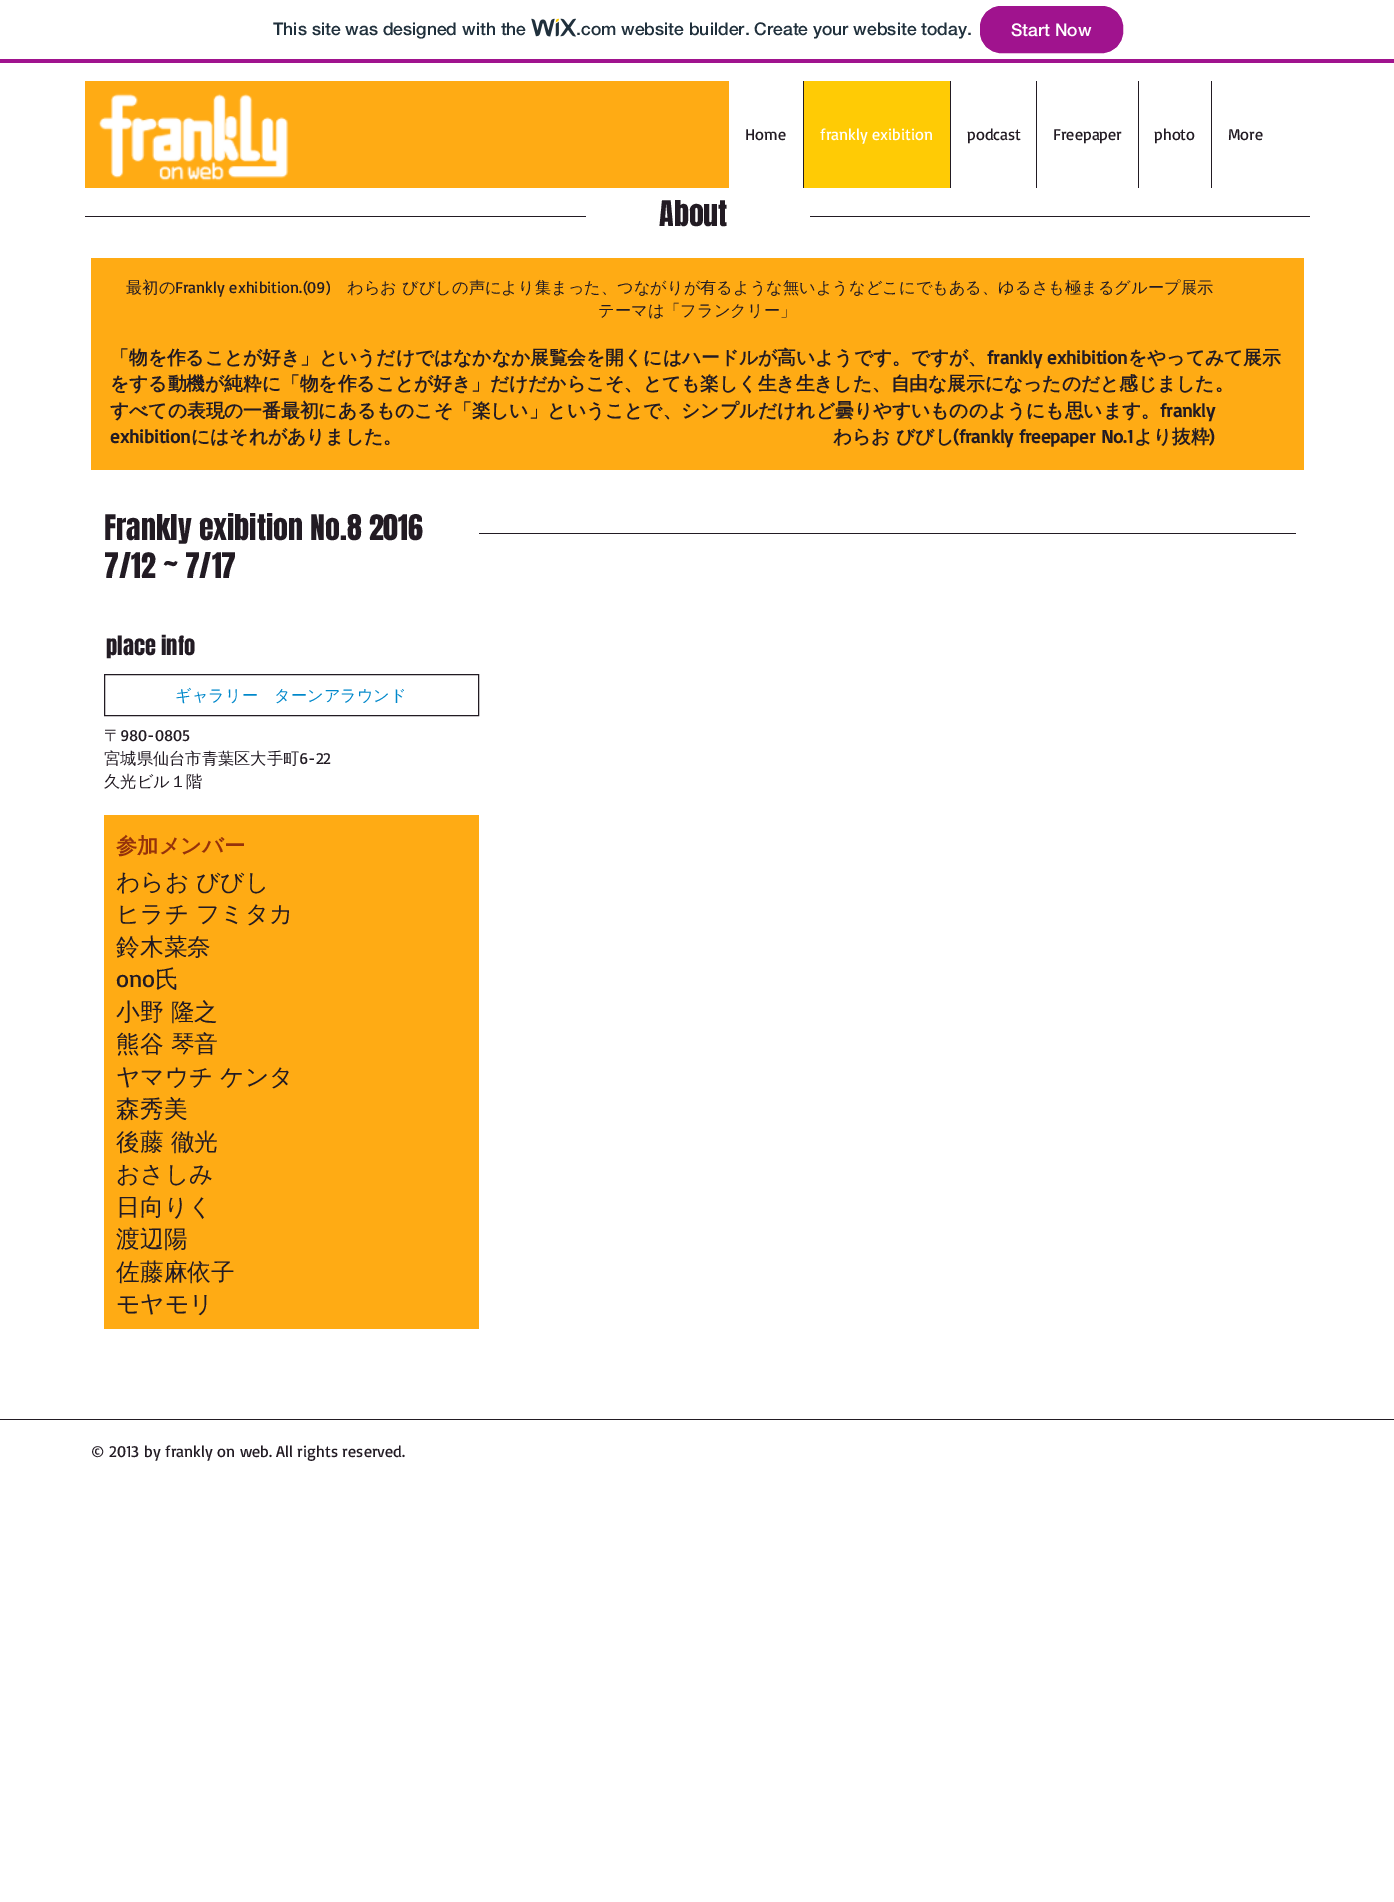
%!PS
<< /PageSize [1394 1902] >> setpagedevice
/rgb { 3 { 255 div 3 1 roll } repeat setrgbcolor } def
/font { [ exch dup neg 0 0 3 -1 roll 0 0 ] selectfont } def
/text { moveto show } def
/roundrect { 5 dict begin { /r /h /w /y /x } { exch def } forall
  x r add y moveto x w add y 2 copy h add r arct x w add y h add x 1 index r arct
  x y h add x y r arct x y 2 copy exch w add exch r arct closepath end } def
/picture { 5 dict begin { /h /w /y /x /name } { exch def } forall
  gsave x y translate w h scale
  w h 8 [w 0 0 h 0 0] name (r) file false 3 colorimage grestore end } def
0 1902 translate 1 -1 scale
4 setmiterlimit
255 255 255 rgb
0 0 1394 1902 rectfill
160 19 142 rgb
0 59 1394 4 rectfill
(img_01.rgb) 531 18 45 19 picture
980.5 6.5 142 46 20.5 roundrect gsave fill grestore
stroke
255 171 20 rgb
85 81 644 107 rectfill
(img_02.rgb) 98 93 191 88 picture
255 203 5 rgb
804 81 146 107 rectfill
34 27 35 rgb
803 81 1 107 rectfill
950 81 1 107 rectfill
1036 81 1 107 rectfill
1138 81 1 107 rectfill
1211 81 1 107 rectfill
85 216 501 1 rectfill
810 216 500 1 rectfill
255 171 20 rgb
91 258 1213 212 rectfill
34 27 35 rgb
479 533 817 1 rectfill
104.5 674.5 374 41 rectstroke
255 171 20 rgb
104 815 375 514 rectfill
34 27 35 rgb
0 1419 1394 1 rectfill
/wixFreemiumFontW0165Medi-Medium 17.5 font
32 48 60 rgb
(This site was designed with the) 273 35 text
(.com website builder. Create your website today.) 576 35 text
255 255 255 rgb
(Start Now) 1011 36 text
/Basic-Regular 16.25 font
34 27 35 rgb
(Home) 745 140 text
255 255 255 rgb
(frankly exibition) 820 140 text
34 27 35 rgb
(podcast) 967 140 text
(Freepaper) 1053 140 text
(photo) 1154 140 text
(More) 1228 140 text
/Anton-Regular 30 font
(About) 659 226 text
/WenQuanYiZenHei-Medium 16.25 font
(最初の) 126 293 text
/Basic-Regular 16.25 font
(Frankly exhibition.\(09\)) 175 293 text
/WenQuanYiZenHei-Medium 16.25 font
(わらお) 347 293 text
(びびしの声により集まった、つながりが有るような無いようなどこにでもある、ゆるさも極まるグループ展示) 402 293 text
(テーマは「フランクリー」) 598 316 text
/WenQuanYiZenHei-Bold 18.75 font
(「物を作ることが好き」というだけではなかなか展覧会を開くにはハードルが高いようです。ですが、) 110 364 text
/Basic-Bold 18.75 font
(frankly exhibition) 987 364 text
/WenQuanYiZenHei-Bold 18.75 font
(をやってみて展示) 1128 364 text
(をする動機が純粋に「物を作ることが好き」だけだからこそ、とても楽しく生き生きした、自由な展示になったのだと感じました。) 110 390 text
(すべての表現の一番最初にあるものこそ「楽しい」ということで、シンプルだけれど曇りやすいもののようにも思います。) 110 417 text
/Basic-Bold 18.75 font
(frankly) 1160 417 text
(exhibition) 110 443 text
/WenQuanYiZenHei-Bold 18.75 font
(にはそれがありました。) 191 443 text
(わらお びびし) 833 443 text
/Basic-Bold 18.75 font
(\(frankly freepaper No.1) 953 443 text
/WenQuanYiZenHei-Bold 18.75 font
(より抜粋) 1134 443 text
/Basic-Bold 18.75 font
(\)) 1209 443 text
/Anton-Regular 30 font
(Frankly exibition No.8 2016) 104 540 text
(7/12 ~ 7/17) 104 578 text
/Anton-Regular 22.5 font
(place info) 106 655 text
/WenQuanYiZenHei-Medium 16.25 font
0 136 203 rgb
(ギャラリー　ターンアラウンド) 175 701 text
34 27 35 rgb
(〒) 104 741 text
/Basic-Regular 16.25 font
(980-0805) 120 741 text
/WenQuanYiZenHei-Medium 16.25 font
(宮城県仙台市青葉区大手町) 104 764 text
/Basic-Regular 16.25 font
(6-22) 299 764 text
/WenQuanYiZenHei-Medium 16.25 font
(久光ビル１階) 104 787 text
/WenQuanYiZenHei-Bold 21.25 font
149 50 11 rgb
(参加メンバー) 116 853 text
/WenQuanYiZenHei-Medium 23.75 font
34 27 35 rgb
(わらお びびし) 116 890 text
(ヒラチ フミタカ) 116 922 text
(鈴木菜奈) 116 955 text
/Basic-Regular 23.75 font
(ono) 116 987 text
/WenQuanYiZenHei-Medium 23.75 font
(氏) 155 987 text
(小野 隆之) 116 1020 text
(熊谷 琴音) 116 1052 text
(ヤマウチ ケンタ) 116 1085 text
(森秀美) 116 1117 text
(後藤 徹光) 116 1150 text
(おさしみ) 116 1182 text
(日向りく) 116 1215 text
(渡辺陽) 116 1247 text
(佐藤麻依子) 116 1280 text
(モヤモリ) 116 1312 text
/Basic-Regular 16.25 font
(© 2013 by frankly on web. All rights reserved.) 91 1457 text
showpage
